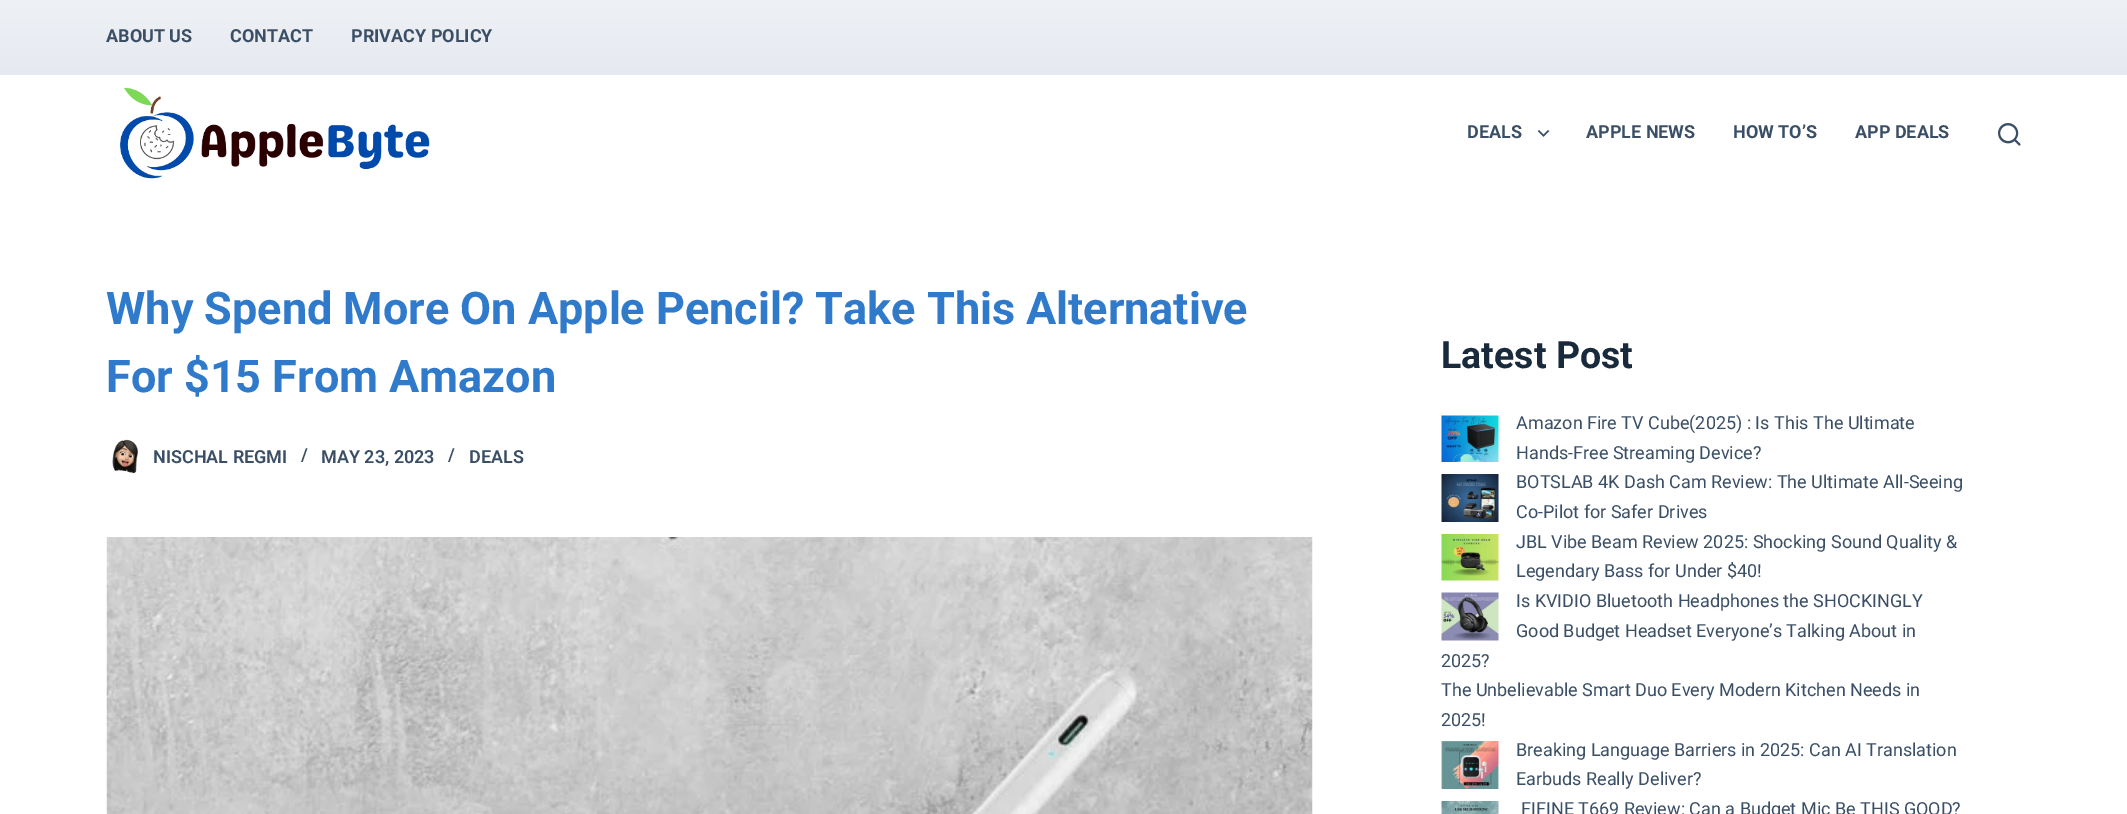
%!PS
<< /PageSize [2127 814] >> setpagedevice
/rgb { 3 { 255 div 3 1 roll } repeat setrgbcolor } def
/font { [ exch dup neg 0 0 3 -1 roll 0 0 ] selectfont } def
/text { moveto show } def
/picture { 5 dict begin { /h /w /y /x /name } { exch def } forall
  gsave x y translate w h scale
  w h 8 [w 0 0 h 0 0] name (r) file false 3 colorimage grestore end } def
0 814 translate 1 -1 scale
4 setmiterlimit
255 255 255 rgb
0 0 2127 814 rectfill
gsave 0 0 moveto 2127 0 rlineto 0 75 rlineto -2127 0 rlineto closepath clip newpath
<< /ShadingType 2 /ColorSpace /DeviceRGB /Coords [1064 75 1064 0] /Extend [true true] /Function << /FunctionType 2 /Domain [0 1] /C0 [0.902 0.914 0.941] /C1 [0.933 0.945 0.961] /N 1 >> >> shfill grestore
(img_01.rgb) 120 87 310 92 picture
(img_02.rgb) 1538 130 12 7 picture
(img_03.rgb) 1998 123 23 23 picture
(img_04.rgb) 112 439 26 35 picture
(img_05.rgb) 106 537 1207 277 picture
(img_06.rgb) 1441 415 58 47 picture
(img_07.rgb) 1441 474 58 48 picture
(img_08.rgb) 1441 534 58 47 picture
(img_09.rgb) 1441 592 58 49 picture
(img_10.rgb) 1441 741 58 48 picture
(img_11.rgb) 1441 801 58 13 picture
/Roboto-Bold 18 font
58 79 102 rgb
(ABOUT US) 106 42 text
(CONTACT) 230 42 text
(PRIVACY POLICY) 351 42 text
(DEALS) 1467 138 text
(APPLE NEWS) 1586 138 text
(HOW TO’S) 1733 138 text
(APP DEALS) 1855 138 text
/Roboto-Bold 45 font
47 122 202 rgb
(Why Spend More On Apple Pencil? Take This Alternative) 106 324 text
(For $15 From Amazon) 106 392 text
/Roboto-SemiBold 18 font
58 79 102 rgb
(NISCHAL REGMI) 153 463 text
(/) 301 461 text
(MAY 23, 2023) 321 463 text
(/) 448 461 text
(DEALS) 469 463 text
/Roboto-Bold 37.5 font
25 42 61 rgb
(Latest Post) 1441 368 text
/Roboto-Regular 18 font
58 79 102 rgb
(Amazon Fire TV Cube\(2025\) : Is This The Ultimate) 1516 429 text
(Hands-Free Streaming Device?) 1516 459 text
(BOTSLAB 4K Dash Cam Review: The Ultimate All-Seeing) 1516 488 text
(Co-Pilot for Safer Drives) 1516 518 text
(JBL Vibe Beam Review 2025: Shocking Sound Quality &) 1516 548 text
(Legendary Bass for Under $40!) 1516 577 text
(Is KVIDIO Bluetooth Headphones the SHOCKINGLY) 1516 607 text
(Good Budget Headset Everyone’s Talking About in) 1516 637 text
(2025?) 1441 667 text
(The Unbelievable Smart Duo Every Modern Kitchen Needs in) 1441 696 text
(2025!) 1441 726 text
(Breaking Language Barriers in 2025: Can AI Translation) 1516 756 text
(Earbuds Really Deliver?) 1516 785 text
(FIFINE T669 Review: Can a Budget Mic Be THIS GOOD?) 1521 815 text
showpage
